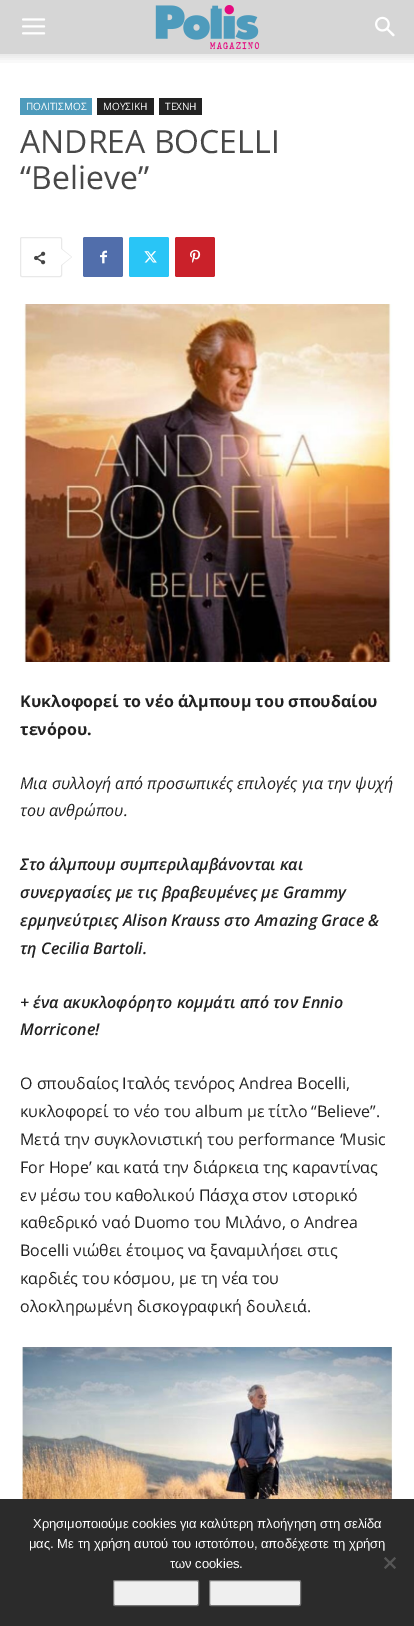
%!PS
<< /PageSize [414 1626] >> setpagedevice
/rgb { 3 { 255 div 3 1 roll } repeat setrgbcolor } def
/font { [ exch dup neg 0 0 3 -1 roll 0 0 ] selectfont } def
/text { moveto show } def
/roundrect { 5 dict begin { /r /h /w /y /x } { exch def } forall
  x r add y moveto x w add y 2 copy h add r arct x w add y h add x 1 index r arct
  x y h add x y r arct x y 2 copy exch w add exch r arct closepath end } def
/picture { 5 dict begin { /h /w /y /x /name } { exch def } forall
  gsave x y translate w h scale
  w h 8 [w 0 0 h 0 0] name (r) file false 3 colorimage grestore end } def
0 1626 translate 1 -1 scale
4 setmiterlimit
255 255 255 rgb
0 0 414 1626 rectfill
214 214 214 rgb
0 0 414 54 rectfill
(img_01.rgb) 22 18 24 17 picture
(img_02.rgb) 155 5 105 45 picture
(img_03.rgb) 375 16 20 21 picture
(img_04.rgb) 0 54 414 9 picture
78 155 188 rgb
20 98 72 17 rectfill
34 34 34 rgb
97 98 57 17 rectfill
159 98 43 17 rectfill
233 233 233 rgb
20.5 237.5 41 39 1.5 roundrect stroke
61 266 moveto 0 -18 rlineto 11 9 rlineto closepath fill
(img_05.rgb) 34 251 12 14 picture
255 255 255 rgb
61 265 moveto 0 -16 rlineto 10 8 rlineto closepath fill
81 110 171 rgb
83 237 40 40 2 roundrect fill
(img_06.rgb) 100 250 7 14 picture
41 197 246 rgb
129 237 40 40 2 roundrect fill
(img_07.rgb) 144 251 13 12 picture
202 33 42 rgb
175 237 40 40 2 roundrect fill
(img_08.rgb) 190 249 11 14 picture
(img_09.rgb) 20 304 373 358 picture
(img_10.rgb) 22 1347 371 152 picture
43 43 43 rgb
0 1499 414 127 rectfill
86 86 86 rgb
394.5 1557 moveto 1.5 1.5 rlineto -10.5 10.5 rlineto -1.5 -1.5 rlineto closepath fill
384 1558.5 moveto 1.5 -1.5 rlineto 10.5 10.5 rlineto -1.5 1.5 rlineto closepath fill
239 239 239 rgb
113.5 1580.5 85 25 1.5 roundrect gsave fill grestore
118 118 118 rgb
stroke
239 239 239 rgb
209.5 1580.5 91 25 1.5 roundrect gsave fill grestore
118 118 118 rgb
stroke
/OpenSans-Regular 10 font
255 255 255 rgb
(ΠΟΛΙΤΙΣΜΟΣ) 26 110 text
(ΜΟΥΣΙΚΗ) 103 110 text
(ΤΕΧΝΗ) 165 110 text
/OpenSans-Regular 32 font
72 72 72 rgb
(ANDREA BOCELLI) 20 153 text
(“Believe”) 20 189 text
/OpenSans-Bold 16 font
34 34 34 rgb
(Κυκλοφορεί το νέο άλμπουμ του σπουδαίου) 20 707 text
(τενόρου.) 20 735 text
/OpenSans-Italic 16 font
(Μια συλλογή από προσωπικές επιλογές για την ψυχή) 20 789 text
(του ανθρώπου.) 20 816 text
/OpenSans-SemiBoldItalic 16 font
(Στο άλμπουμ συμπεριλαμβάνονται και) 20 870 text
(συνεργασίες με τις βραβευμένες με Grammy) 20 898 text
(ερμηνεύτριες Alison Krauss στο Amazing Grace &) 20 926 text
(τη Cecilia Bartoli.) 20 954 text
(+ ένα ακυκλοφόρητο κομμάτι από τον Ennio) 20 1008 text
(Morricone!) 20 1035 text
/OpenSans-Regular 16 font
(O σπουδαίος Ιταλός τενόρος Andrea Bocelli,) 20 1089 text
(κυκλοφορεί το νέο του album με τίτλο “Believe”.) 20 1117 text
(Μετά την συγκλονιστική του performance ‘Music) 20 1145 text
(For Hope’ και κατά την διάρκεια της καραντίνας) 20 1173 text
(εν μέσω του καθολικού Πάσχα στον ιστορικό) 20 1201 text
(καθεδρικό ναό Duomo του Μιλάνο, ο Andrea) 20 1228 text
(Bocelli νιώθει έτοιμος να ξαναμιλήσει στις) 20 1256 text
(καρδιές του κόσμου, με τη νέα του) 20 1284 text
(ολοκληρωμένη δισκογραφική δουλειά.) 20 1312 text
/LiberationSans-Regular 13 font
255 255 255 rgb
(Χρησιμοποιούμε cookies για καλύτερη πλοήγηση στη σελίδα) 33 1528 text
(μας. Με τη χρήση αυτού του ιστοτόπου, αποδέχεστε τη χρήση) 29 1548 text
(των cookies.) 170 1568 text
showpage
